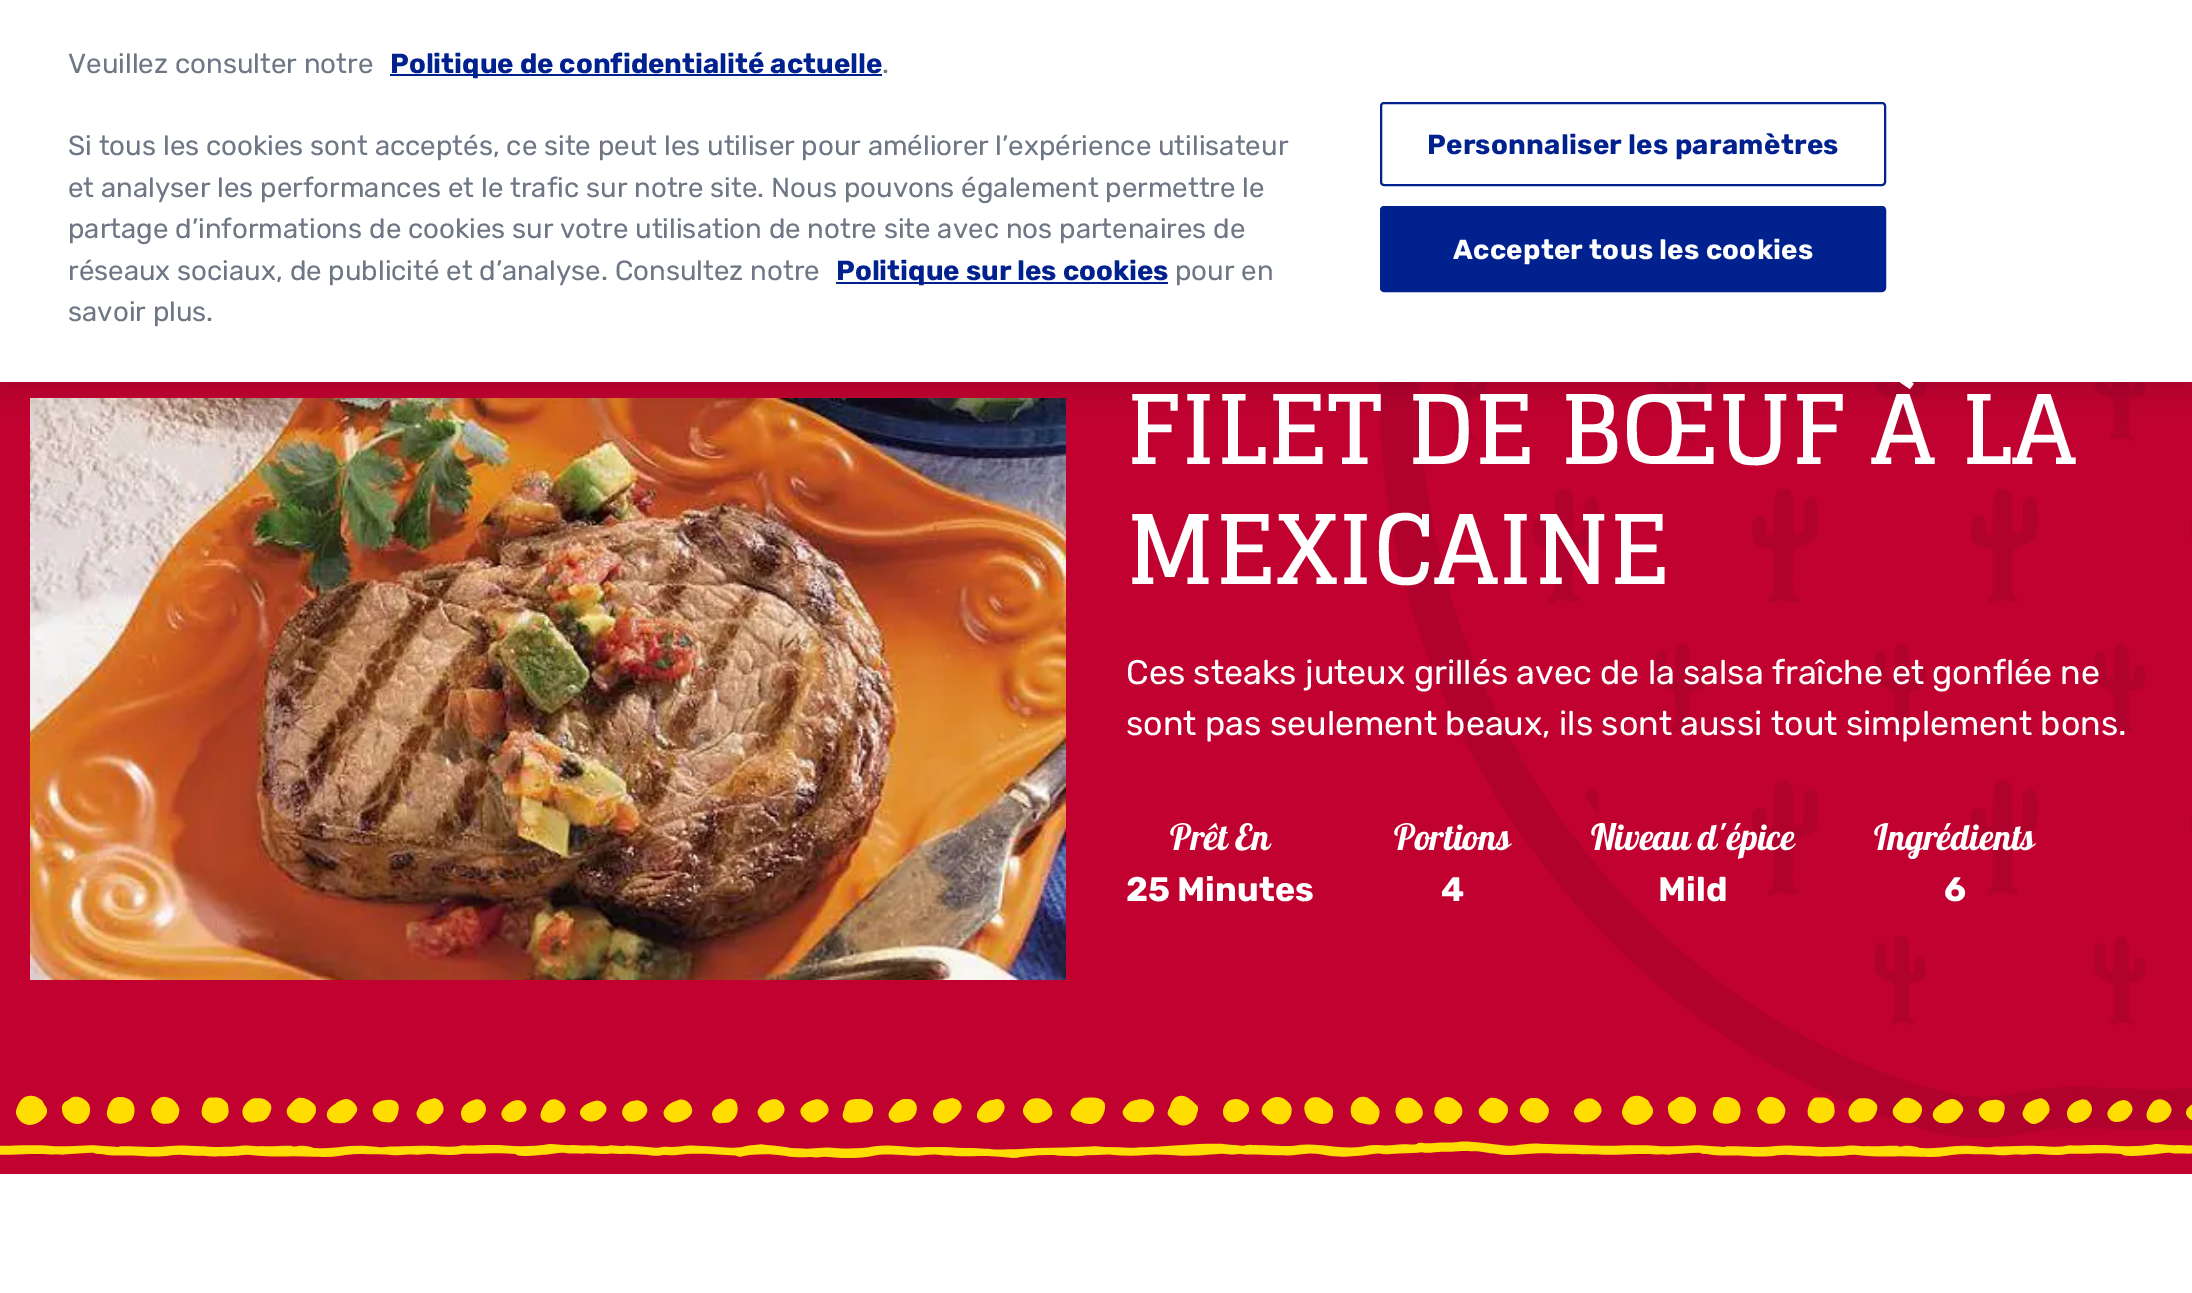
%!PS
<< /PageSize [2192 1293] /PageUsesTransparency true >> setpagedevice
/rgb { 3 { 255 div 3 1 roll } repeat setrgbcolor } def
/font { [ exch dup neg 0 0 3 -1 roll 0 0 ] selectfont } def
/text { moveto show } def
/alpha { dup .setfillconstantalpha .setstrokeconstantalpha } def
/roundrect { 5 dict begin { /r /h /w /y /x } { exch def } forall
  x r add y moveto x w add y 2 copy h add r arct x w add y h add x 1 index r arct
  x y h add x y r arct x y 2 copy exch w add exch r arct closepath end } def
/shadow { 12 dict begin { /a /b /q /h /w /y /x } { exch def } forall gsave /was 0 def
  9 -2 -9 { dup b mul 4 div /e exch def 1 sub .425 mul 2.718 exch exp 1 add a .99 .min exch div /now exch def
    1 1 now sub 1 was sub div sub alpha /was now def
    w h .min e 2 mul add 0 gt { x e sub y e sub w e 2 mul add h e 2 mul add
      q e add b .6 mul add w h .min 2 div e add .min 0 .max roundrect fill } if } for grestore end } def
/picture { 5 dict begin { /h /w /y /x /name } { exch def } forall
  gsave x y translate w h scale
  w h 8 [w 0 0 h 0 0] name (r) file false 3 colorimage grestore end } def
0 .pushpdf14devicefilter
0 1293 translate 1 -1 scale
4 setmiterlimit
255 255 255 rgb
0 0 2192 1293 rectfill
193 2 48 rgb
0 382 2192 792 rectfill
(img_01.rgb) 1378 382 814 756 picture
(img_02.rgb) 30 398 1036 582 picture
0 0 0 rgb
0 0 2192 382 0 18 0.2 shadow
255 255 255 rgb
0 0 2192 382 rectfill
0 33 142 rgb
390 74 492 2 rectfill
836 282 332 2 rectfill
2 setlinewidth
1381 103 504 82 3 roundrect stroke
1381 207 504 84 3 roundrect gsave fill grestore
stroke
(img_03.rgb) 0 1095 2192 63 picture
/Rubik-Light 27.65 font
111 119 133 rgb
(Veuillez consulter notre) 68 73 text
/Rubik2-Light 27.65 font
0 33 142 rgb
(Politique de confidentialité actuelle) 390 73 text
/Rubik-Light 27.65 font
111 119 133 rgb
(.) 882 73 text
(Si tous les cookies sont acceptés, ce site peut les utiliser pour améliorer l’expérience utilisateur) 68 155 text
(et analyser les performances et le trafic sur notre site. Nous pouvons également permettre le) 68 197 text
(partage d’informations de cookies sur votre utilisation de notre site avec nos partenaires de) 68 238 text
(réseaux sociaux, de publicité et d’analyse. Consultez notre) 68 280 text
/Rubik2-Light 27.65 font
0 33 142 rgb
(Politique sur les cookies) 836 280 text
/Rubik-Light 27.65 font
111 119 133 rgb
(pour en) 1175 280 text
(savoir plus.) 68 321 text
/Rubik2-Light 27.65 font
0 33 142 rgb
1427 154 moveto 0.25 0 (Personnaliser les paramètres) ashow
255 255 255 rgb
1453 259 moveto 0.25 0 (Accepter tous les cookies) ashow
/Glegoo-Bold 96 font
(FILET DE BŒUF À LA) 1126 464 text
(MEXICAINE) 1126 584 text
/Rubik-Light 34 font
(Ces steaks juteux grillés avec de la salsa fraîche et gonflée ne) 1126 684 text
(sont pas seulement beaux, ils sont aussi tout simplement bons.) 1126 735 text
/Galada-Regular 36 font
(Prêt En) 1170 850 text
/Rubik2-Light 34 font
(25 Minutes) 1126 901 text
/Galada-Regular 36 font
(Portions) 1394 850 text
/Rubik2-Light 34 font
(4) 1441 901 text
/Galada-Regular 36 font
(Niveau d'épice) 1591 850 text
/Rubik2-Light 34 font
(Mild) 1658 901 text
/Galada-Regular 36 font
(Ingrédients) 1874 850 text
/Rubik2-Light 34 font
(6) 1944 901 text
.poppdf14devicefilter showpage
